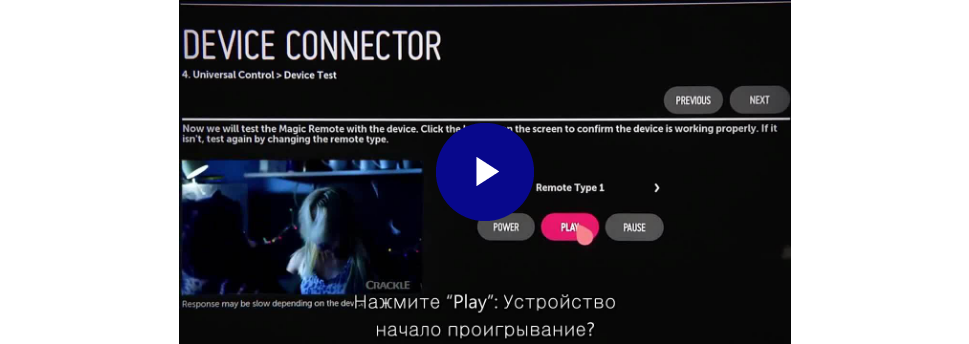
%!PS
<< /PageSize [969 344] >> setpagedevice
/rgb { 3 { 255 div 3 1 roll } repeat setrgbcolor } def
/circle { newpath 0 360 arc closepath } def
/picture { 5 dict begin { /h /w /y /x /name } { exch def } forall
  gsave x y translate w h scale
  w h 8 [w 0 0 h 0 0] name (r) file false 3 colorimage grestore end } def
0 344 translate 1 -1 scale
4 setmiterlimit
255 255 255 rgb
0 0 969 344 rectfill
(img_01.rgb) 179 0 612 344 picture
8 8 140 rgb
485 172 49 circle fill
255 255 255 rgb
476.5 157 moveto 0 29 rlineto 22.5 -14.5 rlineto closepath fill
showpage
